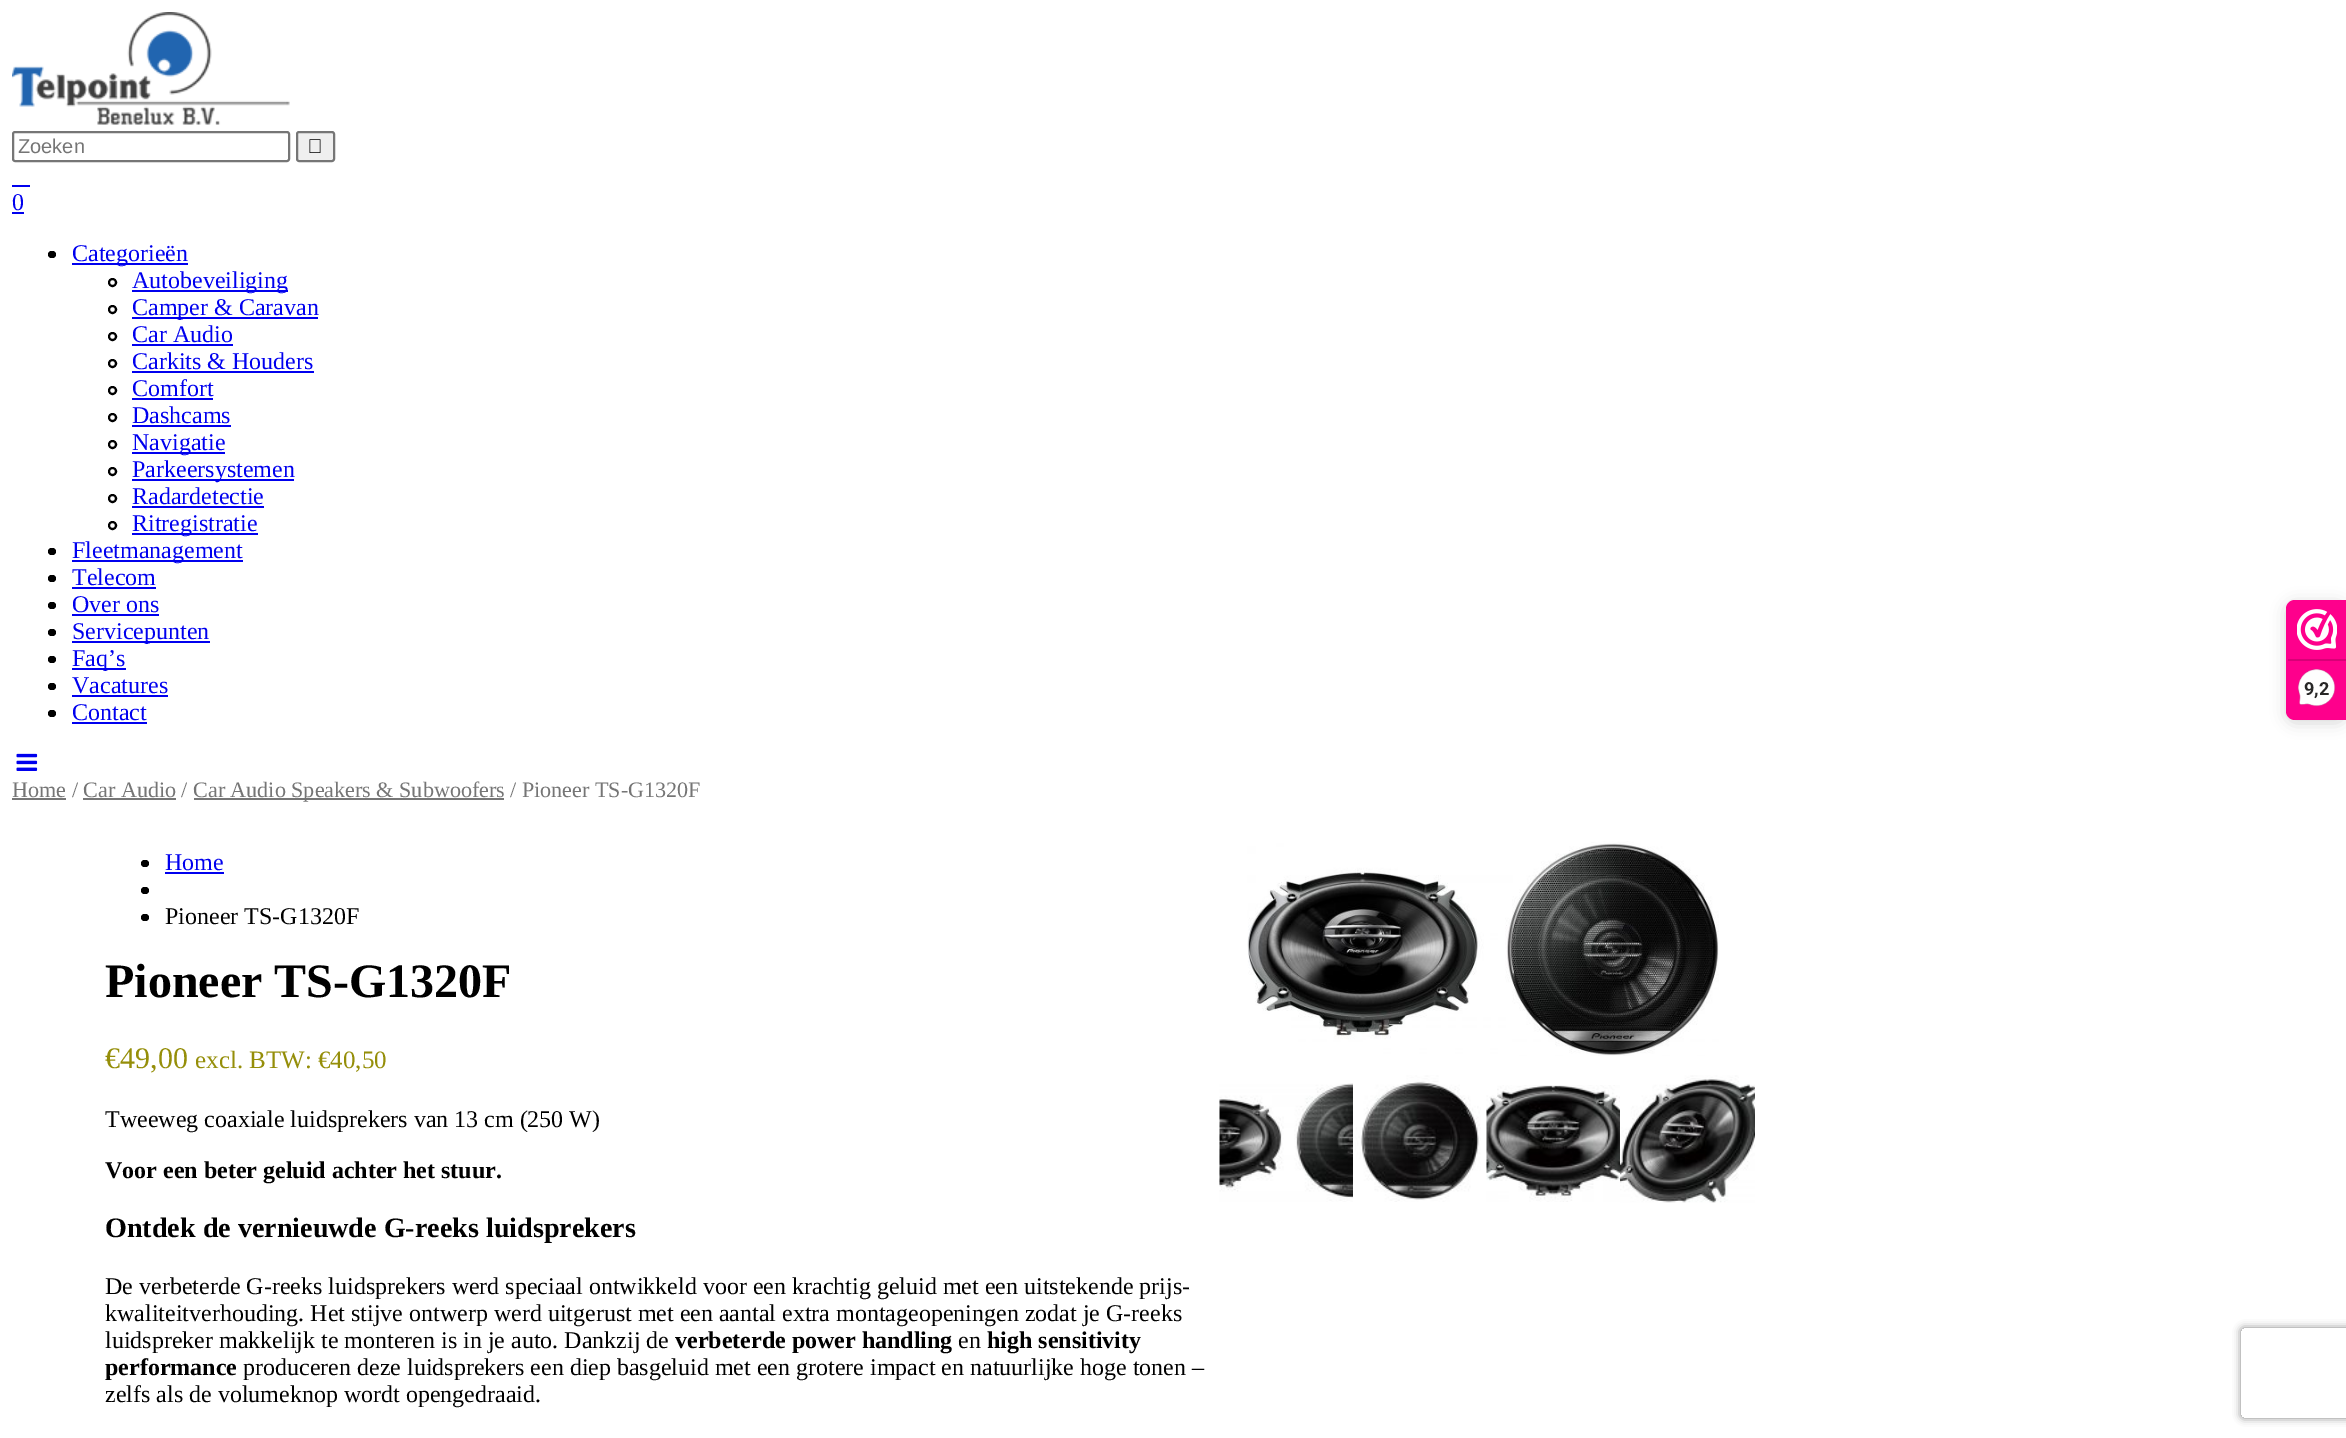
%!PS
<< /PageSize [2346 1438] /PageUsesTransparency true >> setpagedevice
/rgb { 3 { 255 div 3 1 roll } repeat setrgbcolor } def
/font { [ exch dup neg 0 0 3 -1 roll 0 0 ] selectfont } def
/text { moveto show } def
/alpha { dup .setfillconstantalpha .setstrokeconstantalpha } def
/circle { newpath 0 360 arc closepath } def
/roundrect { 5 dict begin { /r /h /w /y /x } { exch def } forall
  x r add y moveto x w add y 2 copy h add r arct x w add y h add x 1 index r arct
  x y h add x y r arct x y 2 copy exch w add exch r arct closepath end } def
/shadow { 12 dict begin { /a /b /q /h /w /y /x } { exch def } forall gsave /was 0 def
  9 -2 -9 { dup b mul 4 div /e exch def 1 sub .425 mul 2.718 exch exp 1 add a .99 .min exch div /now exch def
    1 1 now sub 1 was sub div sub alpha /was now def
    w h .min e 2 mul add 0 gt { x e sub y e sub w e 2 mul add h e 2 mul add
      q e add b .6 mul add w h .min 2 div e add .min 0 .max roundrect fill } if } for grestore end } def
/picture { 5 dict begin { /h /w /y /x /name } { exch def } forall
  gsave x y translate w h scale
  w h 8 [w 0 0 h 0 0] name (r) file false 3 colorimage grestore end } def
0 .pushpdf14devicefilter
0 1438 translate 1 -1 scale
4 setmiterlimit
255 255 255 rgb
0 0 2346 1438 rectfill
(img_01.rgb) 12 12 278 113 picture
118 118 118 rgb
2 setlinewidth
13 132 276 29 2 roundrect stroke
239 239 239 rgb
297 132 37 29 2 roundrect gsave fill grestore
118 118 118 rgb
stroke
(img_02.rgb) 309 139 12 14 picture
0 0 238 rgb
12 185 18 2 rectfill
12 212 12 2 rectfill
0 0 0 rgb
48 251 8 7 3.5 roundrect fill
0 0 238 rgb
72 263 116 2 rectfill
0 0 0 rgb
112.5 282.5 3.5 circle stroke
0 0 238 rgb
132 290 156 2 rectfill
0 0 0 rgb
112.5 309.5 3.5 circle stroke
0 0 238 rgb
132 317 186 2 rectfill
0 0 0 rgb
112.5 336.5 3.5 circle stroke
0 0 238 rgb
132 344 101 2 rectfill
0 0 0 rgb
112.5 363.5 3.5 circle stroke
0 0 238 rgb
132 371 182 2 rectfill
0 0 0 rgb
112.5 390.5 3.5 circle stroke
0 0 238 rgb
132 398 81 2 rectfill
0 0 0 rgb
112.5 417.5 3.5 circle stroke
0 0 238 rgb
132 425 99 2 rectfill
0 0 0 rgb
112.5 444.5 3.5 circle stroke
0 0 238 rgb
132 452 93 2 rectfill
0 0 0 rgb
112.5 471.5 3.5 circle stroke
0 0 238 rgb
132 479 162 2 rectfill
0 0 0 rgb
112.5 498.5 3.5 circle stroke
0 0 238 rgb
132 506 132 2 rectfill
0 0 0 rgb
112.5 525.5 3.5 circle stroke
0 0 238 rgb
132 533 126 2 rectfill
0 0 0 rgb
48 548 8 7 3.5 roundrect fill
0 0 238 rgb
72 560 171 2 rectfill
0 0 0 rgb
48 575 8 7 3.5 roundrect fill
0 0 238 rgb
72 587 84 2 rectfill
0 0 0 rgb
48 602 8 7 3.5 roundrect fill
0 0 238 rgb
72 614 87 2 rectfill
0 0 0 rgb
48 629 8 7 3.5 roundrect fill
0 0 238 rgb
72 641 138 2 rectfill
0 0 0 rgb
48 656 8 7 3.5 roundrect fill
0 0 238 rgb
72 668 54 2 rectfill
0 0 0 rgb
48 683 8 7 3.5 roundrect fill
0 0 238 rgb
72 695 96 2 rectfill
0 0 0 rgb
48 710 8 7 3.5 roundrect fill
0 0 238 rgb
72 722 75 2 rectfill
(img_03.rgb) 16 753 22 18 picture
118 118 118 rgb
12 798 54 2 rectfill
194 798 310 2 rectfill
83 798 93 2 rectfill
0 0 0 rgb
141 860 8 7 3.5 roundrect fill
0 0 238 rgb
165 872 59 2 rectfill
0 0 0 rgb
141 887 8 7 3.5 roundrect fill
141 914 8 7 3.5 roundrect fill
(img_04.rgb) 1247 841 472 215 picture
(img_05.rgb) 1219 1083 134 119 picture
(img_06.rgb) 1355 1075 126 127 picture
(img_07.rgb) 1486 1085 134 117 picture
(img_08.rgb) 1620 1075 135 128 picture
2286 603 60 120 9 7.5 0.15 shadow
254 0 140 rgb
2295 600 moveto 51 0 rlineto 0 120 rlineto -51 0 rlineto -5 0 -9 -4 -9 -9 rcurveto 0 -102 rlineto 0 -5 4 -9 9 -9 rcurveto closepath fill
(img_09.rgb) 2297 609 40 41 picture
216 0 119 rgb
2288 659 58 2 rectfill
(img_10.rgb) 2298 669 38 38 picture
gsave
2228 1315 moveto 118 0 rlineto 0 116 rlineto -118 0 rlineto closepath 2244 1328 moveto 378 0 rlineto 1.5 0 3 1.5 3 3 rcurveto 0 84 rlineto 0 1.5 -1.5 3 -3 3 rcurveto -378 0 rlineto -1.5 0 -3 -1.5 -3 -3 rcurveto 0 -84 rlineto 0 -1.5 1.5 -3 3 -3 rcurveto closepath eoclip newpath
128 128 128 rgb
2241 1328 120 90 3 4 1 shadow
grestore
/LiberationSans-Regular 20 font
117 117 117 rgb
(Zoeken) 18 153 text
/LiberationSerif-Regular 24 font
0 0 238 rgb
(0) 12 210 text
(Categorieën) 72 261 text
(Autobeveiliging) 132 288 text
(Camper & Caravan) 132 315 text
(Car Audio) 132 342 text
(Carkits & Houders) 132 369 text
(Comfort) 132 396 text
(Dashcams) 132 423 text
(Navigatie) 132 450 text
(Parkeersystemen) 132 477 text
(Radardetectie) 132 504 text
(Ritregistratie) 132 531 text
(Fleetmanagement) 72 558 text
(Telecom) 72 585 text
(Over ons) 72 612 text
(Servicepunten) 72 639 text
(Faq’s) 72 666 text
(Vacatures) 72 693 text
(Contact) 72 720 text
/LiberationSerif-Regular 22.1 font
117 117 117 rgb
(Home / Car Audio /) 12 797 text
(Car Audio Speakers & Subwoofers / Pioneer TS-G1320F) 193 797 text
/LiberationSerif-Regular 24 font
0 0 238 rgb
(Home) 165 870 text
0 0 0 rgb
(Pioneer TS-G1320F) 165 924 text
/LiberationSerif-Bold 48 font
(Pioneer TS-G1320F) 105 997 text
/LiberationSerif-Regular 30 font
149 142 9 rgb
(€49,00) 105 1068 text
/LiberationSerif-Regular 25 font
(excl. BTW: €40,50) 195 1068 text
/LiberationSerif-Regular 24 font
0 0 0 rgb
(Tweeweg coaxiale luidsprekers van 13 cm \(250 W\)) 105 1127 text
/LiberationSerif-Bold 24 font
(Voor een beter geluid achter het stuur.) 105 1178 text
/LiberationSerif-Bold 28.1 font
(Ontdek de vernieuwde G-reeks luidsprekers) 105 1237 text
/LiberationSerif-Regular 24 font
(De verbeterde G-reeks luidsprekers werd speciaal ontwikkeld voor een krachtig geluid met een uitstekende prijs-) 105 1294 text
(kwaliteitverhouding. Het stijve ontwerp werd uitgerust met een aantal extra montageopeningen zodat je G-reeks) 105 1321 text
(luidspreker makkelijk te monteren is in je auto. Dankzij de) 105 1348 text
/LiberationSerif-Bold 24 font
(verbeterde power handling) 675 1348 text
/LiberationSerif-Regular 24 font
(en) 958 1348 text
/LiberationSerif-Bold 24 font
(high sensitivity) 987 1348 text
(performance) 105 1375 text
/LiberationSerif-Regular 24 font
(produceren deze luidsprekers een diep basgeluid met een grotere impact en natuurlijke hoge tonen –) 243 1375 text
(zelfs als de volumeknop wordt opengedraaid.) 105 1402 text
/Roboto-Bold 18 font
39 38 38 rgb
(9,2) 2304 695 text
.poppdf14devicefilter showpage
